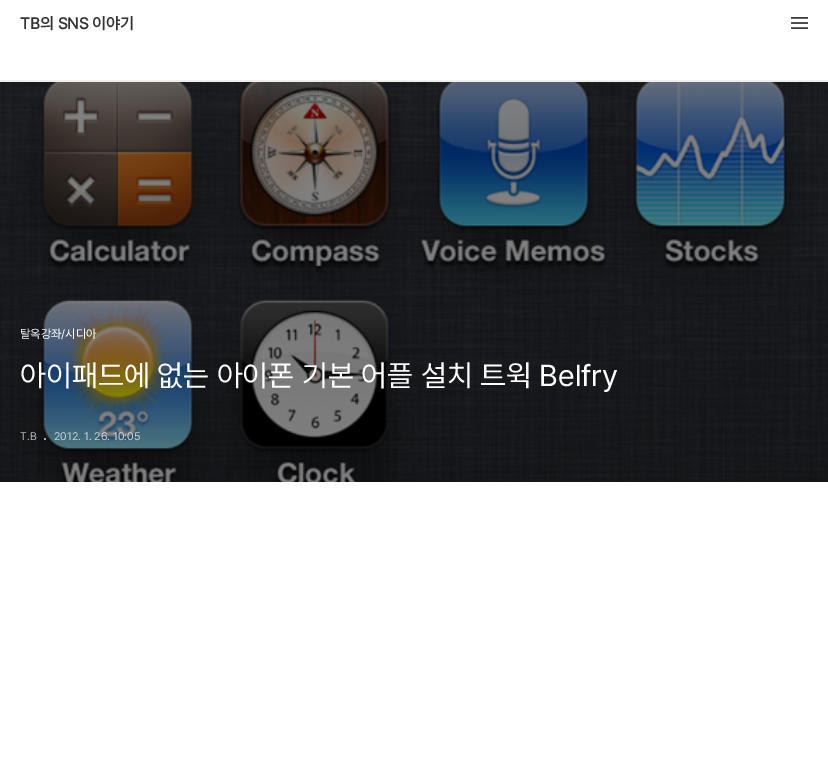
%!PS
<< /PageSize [828 768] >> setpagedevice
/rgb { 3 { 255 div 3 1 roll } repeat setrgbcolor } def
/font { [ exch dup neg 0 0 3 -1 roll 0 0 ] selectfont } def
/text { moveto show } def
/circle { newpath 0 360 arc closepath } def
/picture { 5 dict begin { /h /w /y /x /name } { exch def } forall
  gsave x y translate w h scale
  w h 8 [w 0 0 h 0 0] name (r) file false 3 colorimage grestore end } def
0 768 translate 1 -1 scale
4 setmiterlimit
255 255 255 rgb
0 0 828 768 rectfill
239 239 239 rgb
0 80 828 2 rectfill
(img_01.rgb) 791 17 17 12 picture
(img_02.rgb) 0 82 828 400 picture
184 184 185 rgb
45 439 1 circle fill
/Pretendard-Bold 16 font
51 51 51 rgb
(TB의 SNS 이야기) 20 29 text
/Pretendard-Regular 12 font
255 255 255 rgb
(탈옥강좌/시디아) 20 338 text
/Pretendard-Regular 30 font
(아이패드에 없는 아이폰 기본 어플 설치 트윅 Belfry) 20 386 text
/Pretendard-Regular 11 font
185 185 186 rgb
(T.B) 20 440 text
200 210 215 rgb
(2012. 1. 26. 10:05) 54 440 text
showpage
